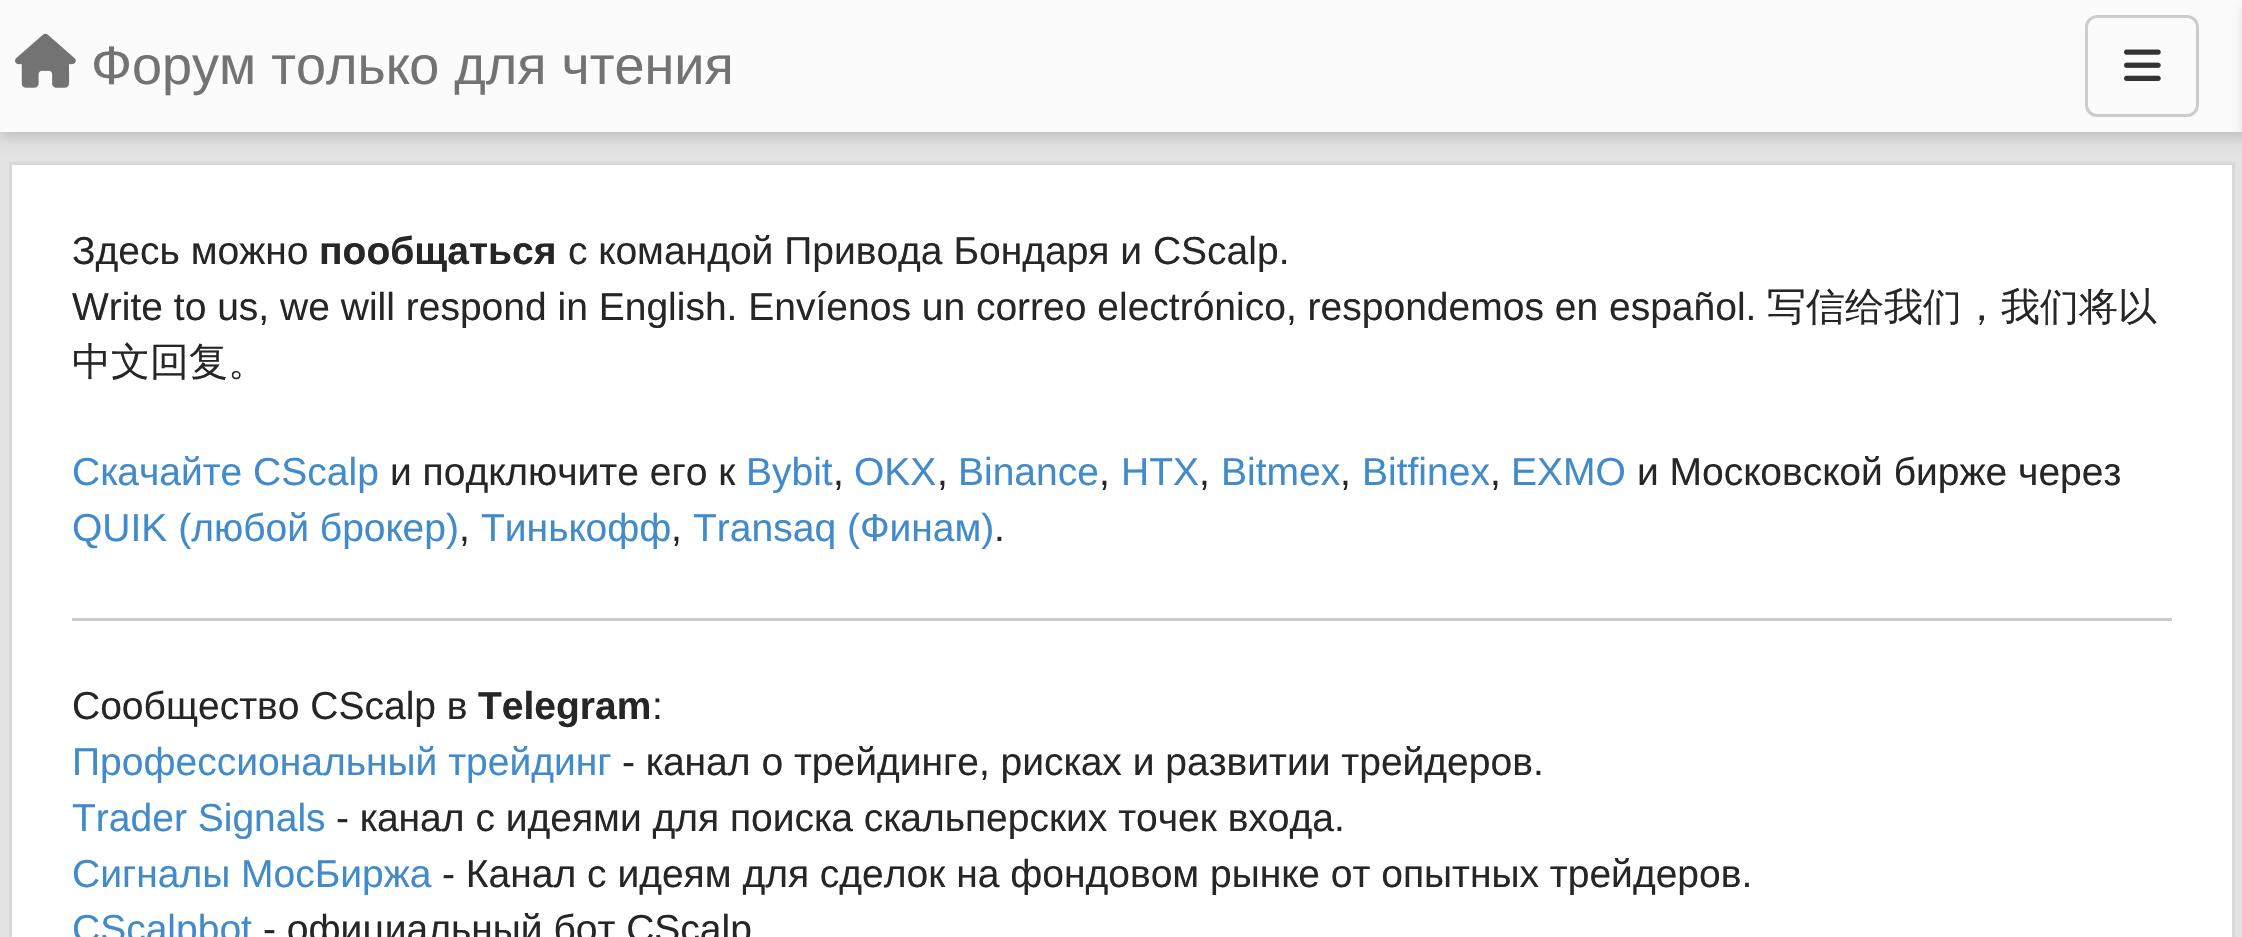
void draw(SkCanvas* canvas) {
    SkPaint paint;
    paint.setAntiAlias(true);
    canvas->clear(0xFFE3E3E3);
    paint.setColor(0x26000000);
    paint.setMaskFilter(SkMaskFilter::MakeBlur(kNormal_SkBlurStyle, 6));
    canvas->drawRect(SkRect::MakeXYWH(0, 6, 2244, 132), paint);
    paint.setMaskFilter(nullptr);
    paint.setColor(0xFFFBFBFB);
    canvas->drawRect(SkRect::MakeXYWH(0, 0, 2242, 132), paint);
    canvas->drawImageRect(SkImages::DeferredFromEncodedData(SkData::MakeFromFileName("img1.png")), SkRect::MakeXYWH(15, 33, 61, 55), SkSamplingOptions());
    SkFont font1(fontMgr->matchFamilyStyle("Liberation Sans", SkFontStyle::Normal()), 54);
    font1.setSubpixel(true);
    paint.setColor(0xFF737373);
    canvas->drawString("Форум только для чтения", 91, 84, font1, paint);
    paint.setStyle(SkPaint::kStroke_Style);
    paint.setStrokeWidth(3);
    paint.setColor(0xFFCCCCCC);
    canvas->drawRoundRect(SkRect::MakeXYWH(2086.5f, 16.5f, 111, 99), 10.5f, 10.5f, paint);
    canvas->drawImageRect(SkImages::DeferredFromEncodedData(SkData::MakeFromFileName("img2.png")), SkRect::MakeXYWH(2124, 49, 37, 32), SkSamplingOptions());
    paint.setStyle(SkPaint::kFill_Style);
    paint.setColor(0x26000000);
    paint.setMaskFilter(SkMaskFilter::MakeBlur(kNormal_SkBlurStyle, 6));
    canvas->drawRect(SkRect::MakeXYWH(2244, 6, 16, 132), paint);
    paint.setMaskFilter(nullptr);
    paint.setColor(0xFFD8D8D8);
    canvas->drawRect(SkRect::MakeXYWH(9, 162, 2226, 3), paint);
    paint.setColor(0xFFFFFFFF);
    canvas->drawPath(SkPathBuilder().moveTo(12, 165).lineTo(2232, 165).lineTo(2232, 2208).cubicTo(2232, 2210, 2229, 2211, 2226, 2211).lineTo(18, 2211).cubicTo(15, 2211, 12, 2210, 12, 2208).close().detach(), paint);
    paint.setColor(0xFFD8D8D8);
    canvas->drawPath(SkPathBuilder(SkPathFillType::kEvenOdd).moveTo(9, 165).lineTo(2235, 165).lineTo(2235, 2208).cubicTo(2235, 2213, 2231, 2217, 2226, 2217).lineTo(18, 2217).cubicTo(13, 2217, 9, 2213, 9, 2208).close().moveTo(12, 165).lineTo(2232, 165).lineTo(2232, 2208).cubicTo(2232, 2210, 2229, 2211, 2226, 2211).lineTo(18, 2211).cubicTo(15, 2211, 12, 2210, 12, 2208).close().detach(), paint);
    SkFont font2(fontMgr->matchFamilyStyle("Liberation Sans", SkFontStyle::Normal()), 39);
    font2.setSubpixel(true);
    paint.setColor(0xFF262626);
    canvas->drawString("Здесь можно", 72, 264, font2, paint);
    SkFont font3(fontMgr->matchFamilyStyle("Liberation Sans", SkFontStyle::Bold()), 39);
    font3.setSubpixel(true);
    canvas->drawString("пообщаться", 319, 264, font3, paint);
    canvas->drawString("с командой Привода Бондаря и CScalp.", 568, 264, font2, paint);
    canvas->drawString("Write to us, we will respond in English. Envíenos un correo electrónico, respondemos en español.", 72, 320, font2, paint);
    SkFont font4(fontMgr->matchFamilyStyle("WenQuanYi Zen Hei", SkFontStyle(500, SkFontStyle::kNormal_Width, SkFontStyle::kUpright_Slant)), 39);
    font4.setSubpixel(true);
    canvas->drawString("写信给我们，我们将以", 1767, 320, font4, paint);
    canvas->drawString("中文回复。", 72, 375, font4, paint);
    paint.setColor(0xFF428BCA);
    canvas->drawString("Скачайте CScalp", 72, 485, font2, paint);
    paint.setColor(0xFF262626);
    canvas->drawString("и подключите его к", 390, 485, font2, paint);
    paint.setColor(0xFF428BCA);
    canvas->drawString("Bybit", 746, 485, font2, paint);
    paint.setColor(0xFF262626);
    canvas->drawString(",", 833, 485, font2, paint);
    paint.setColor(0xFF428BCA);
    canvas->drawString("OKX", 854, 485, font2, paint);
    paint.setColor(0xFF262626);
    canvas->drawString(",", 937, 485, font2, paint);
    paint.setColor(0xFF428BCA);
    canvas->drawString("Binance", 958, 485, font2, paint);
    paint.setColor(0xFF262626);
    canvas->drawString(",", 1099, 485, font2, paint);
    paint.setColor(0xFF428BCA);
    canvas->drawString("HTX", 1121, 485, font2, paint);
    paint.setColor(0xFF262626);
    canvas->drawString(",", 1199, 485, font2, paint);
    paint.setColor(0xFF428BCA);
    canvas->drawString("Bitmex", 1221, 485, font2, paint);
    paint.setColor(0xFF262626);
    canvas->drawString(",", 1340, 485, font2, paint);
    paint.setColor(0xFF428BCA);
    canvas->drawString("Bitfinex", 1362, 485, font2, paint);
    paint.setColor(0xFF262626);
    canvas->drawString(",", 1490, 485, font2, paint);
    paint.setColor(0xFF428BCA);
    canvas->drawString("EXMO", 1511, 485, font2, paint);
    paint.setColor(0xFF262626);
    canvas->drawString("и Московской бирже через", 1637, 485, font2, paint);
    paint.setColor(0xFF428BCA);
    canvas->drawString("QUIK (любой брокер)", 72, 541, font2, paint);
    paint.setColor(0xFF262626);
    canvas->drawString(",", 459, 541, font2, paint);
    paint.setColor(0xFF428BCA);
    canvas->drawString("Тинькофф", 481, 541, font2, paint);
    paint.setColor(0xFF262626);
    canvas->drawString(",", 671, 541, font2, paint);
    paint.setColor(0xFF428BCA);
    canvas->drawString("Transaq (Финам)", 693, 541, font2, paint);
    paint.setColor(0xFF262626);
    canvas->drawString(".", 994, 541, font2, paint);
    paint.setColor(0xFFCCCCCC);
    canvas->drawRect(SkRect::MakeXYWH(72, 618, 2100, 3), paint);
    paint.setColor(0xFF262626);
    canvas->drawString("Сообщество CScalp в", 72, 719, font2, paint);
    canvas->drawString("Telegram", 478, 719, font3, paint);
    canvas->drawString(":", 652, 719, font2, paint);
    paint.setColor(0xFF428BCA);
    canvas->drawString("Профессиональный трейдинг", 72, 775, font2, paint);
    paint.setColor(0xFF262626);
    canvas->drawString("- канал о трейдинге, рисках и развитии трейдеров.", 622, 775, font2, paint);
    paint.setColor(0xFF428BCA);
    canvas->drawString("Trader Signals", 72, 831, font2, paint);
    paint.setColor(0xFF262626);
    canvas->drawString("- канал с идеями для поиска скальперских точек входа.", 336, 831, font2, paint);
    paint.setColor(0xFF428BCA);
    canvas->drawString("Сигналы МосБиржа", 72, 887, font2, paint);
    paint.setColor(0xFF262626);
    canvas->drawString("- Канал с идеям для сделок на фондовом рынке от опытных трейдеров.", 442, 887, font2, paint);
    paint.setColor(0xFF428BCA);
    canvas->drawString("CScalpbot", 72, 942, font2, paint);
    paint.setColor(0xFF262626);
    canvas->drawString("- официальный бот CScalp", 263, 942, font2, paint);
}
